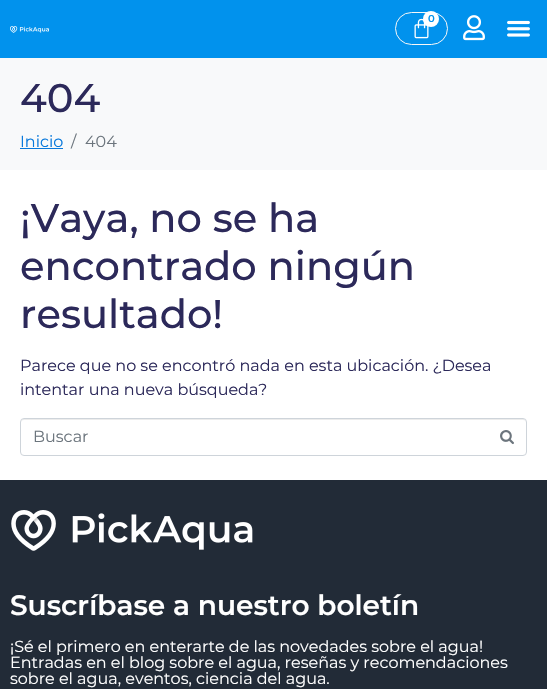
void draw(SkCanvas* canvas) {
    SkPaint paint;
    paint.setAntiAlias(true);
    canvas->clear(0xFFFFFFFF);
    paint.setColor(0xFF0192ED);
    canvas->drawRect(SkRect::MakeXYWH(0, 0, 547, 58), paint);
    paint.setStyle(SkPaint::kStroke_Style);
    paint.setStrokeWidth(1);
    paint.setColor(0xFFF7F7F7);
    canvas->drawRoundRect(SkRect::MakeXYWH(395.5f, 12.5f, 52, 32), 16, 16, paint);
    canvas->drawImageRect(SkImages::DeferredFromEncodedData(SkData::MakeFromFileName("img1.png")), SkRect::MakeXYWH(414, 18, 15, 21), SkSamplingOptions());
    paint.setStyle(SkPaint::kFill_Style);
    paint.setColor(0xFFFFFFFF);
    canvas->drawCircle(431, 19, 8, paint);
    SkFont font1(fontMgr->matchFamilyStyle("Montserrat", SkFontStyle(600, SkFontStyle::kNormal_Width, SkFontStyle::kUpright_Slant)), 10);
    font1.setSubpixel(true);
    paint.setColor(0xFF0192ED);
    canvas->drawString("0", 428, 22, font1, paint);
    canvas->drawImageRect(SkImages::DeferredFromEncodedData(SkData::MakeFromFileName("img2.png")), SkRect::MakeXYWH(463, 15, 22, 26), SkSamplingOptions());
    canvas->drawImageRect(SkImages::DeferredFromEncodedData(SkData::MakeFromFileName("img3.png")), SkRect::MakeXYWH(507, 20, 23, 17), SkSamplingOptions());
    canvas->drawImageRect(SkImages::DeferredFromEncodedData(SkData::MakeFromFileName("img4.png")), SkRect::MakeXYWH(10, 26, 39, 7), SkSamplingOptions());
    paint.setColor(0xFFF8F9FA);
    canvas->drawRect(SkRect::MakeXYWH(0, 58, 547, 112), paint);
    SkFont font2(fontMgr->matchFamilyStyle("Montserrat", SkFontStyle(500, SkFontStyle::kNormal_Width, SkFontStyle::kUpright_Slant)), 40);
    font2.setSubpixel(true);
    paint.setColor(0xFF2C295A);
    canvas->drawString("404", 20, 112, font2, paint);
    SkFont font3(fontMgr->matchFamilyStyle("Montserrat", SkFontStyle::Normal()), 16);
    font3.setSubpixel(true);
    paint.setColor(0xFF0979DC);
    canvas->drawString("Inicio", 20, 147, font3, paint);
    canvas->drawRect(SkRect::MakeXYWH(20, 148, 43, 1), paint);
    paint.setColor(0xFF6C757D);
    canvas->drawString("/", 71, 147, font3, paint);
    canvas->drawString("404", 85, 147, font3, paint);
    paint.setColor(0xFF2C295A);
    canvas->drawString("¡Vaya, no se ha", 20, 232, font2, paint);
    canvas->drawString("encontrado ningún", 20, 280, font2, paint);
    canvas->drawString("resultado!", 20, 328, font2, paint);
    canvas->drawString("Parece que no se encontró nada en esta ubicación. ¿Desea", 20, 371, font3, paint);
    canvas->drawString("intentar una nueva búsqueda?", 20, 395, font3, paint);
    paint.setColor(0xFFECECEC);
    canvas->drawPath(SkPathBuilder().moveTo(24, 420).lineTo(523, 420).cubicTo(525, 420, 526, 421, 526, 423).cubicTo(526, 421, 525, 419, 523, 419).lineTo(24, 419).cubicTo(22, 419, 21, 421, 21, 423).cubicTo(21, 421, 22, 420, 24, 420).close().detach(), paint);
    paint.setStyle(SkPaint::kStroke_Style);
    paint.setColor(0xFFCED4DA);
    canvas->drawRoundRect(SkRect::MakeXYWH(20.5f, 418.5f, 506, 37), 3.5f, 3.5f, paint);
    paint.setStyle(SkPaint::kFill_Style);
    paint.setColor(0xFF6C757D);
    canvas->drawString("Buscar", 33, 442, font3, paint);
    canvas->drawImageRect(SkImages::DeferredFromEncodedData(SkData::MakeFromFileName("img5.png")), SkRect::MakeXYWH(500, 430, 14, 15), SkSamplingOptions());
    paint.setColor(0xFF222B37);
    canvas->drawRect(SkRect::MakeXYWH(0, 480, 547, 209), paint);
    canvas->drawImageRect(SkImages::DeferredFromEncodedData(SkData::MakeFromFileName("img6.png")), SkRect::MakeXYWH(11, 510, 242, 41), SkSamplingOptions());
    SkFont font4(fontMgr->matchFamilyStyle("Montserrat", SkFontStyle(600, SkFontStyle::kNormal_Width, SkFontStyle::kUpright_Slant)), 28);
    font4.setSubpixel(true);
    paint.setColor(0xFFFFFFFF);
    canvas->drawString("Suscríbase a nuestro boletín", 10, 615, font4, paint);
    canvas->drawString("¡Sé el primero en enterarte de las novedades sobre el agua!", 10, 652, font3, paint);
    canvas->drawString("Entradas en el blog sobre el agua, reseñas y recomendaciones", 10, 668, font3, paint);
    canvas->drawString("sobre el agua, eventos, ciencia del agua.", 10, 684, font3, paint);
}
